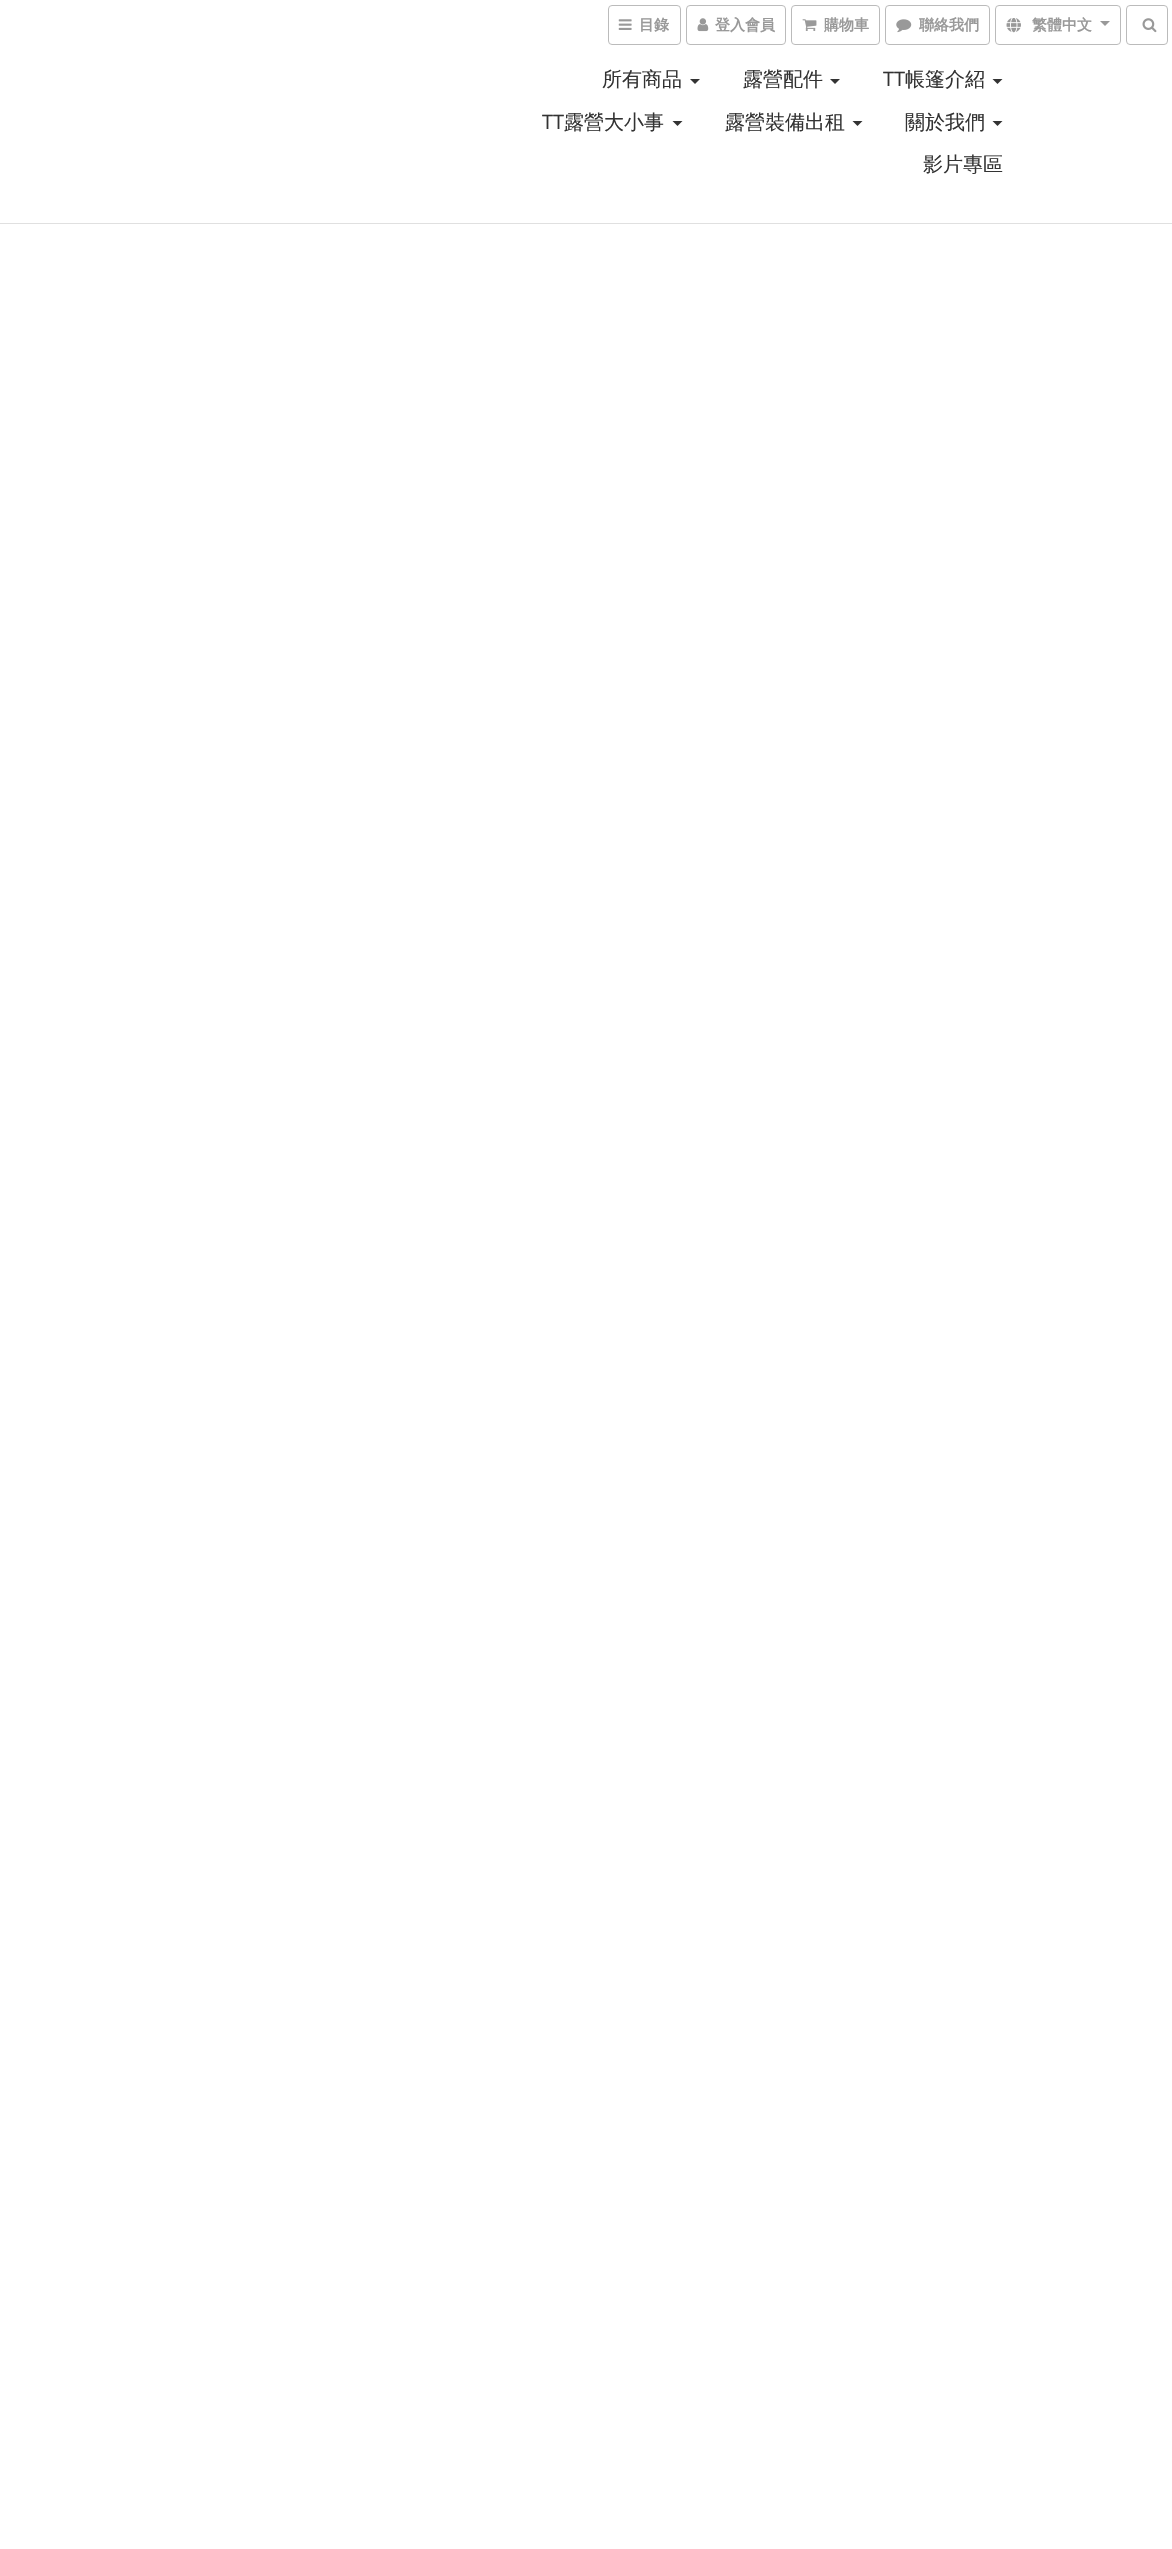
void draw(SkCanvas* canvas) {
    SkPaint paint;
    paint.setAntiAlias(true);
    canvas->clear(0xFFFFFFFF);
    paint.setStyle(SkPaint::kStroke_Style);
    paint.setStrokeWidth(1);
    paint.setColor(0xFFBBBBBB);
    canvas->drawRoundRect(SkRect::MakeXYWH(608.5f, 5.5f, 72, 39), 3.5f, 3.5f, paint);
    canvas->drawImageRect(SkImages::DeferredFromEncodedData(SkData::MakeFromFileName("img1.png")), SkRect::MakeXYWH(618, 19, 14, 11), SkSamplingOptions());
    SkFont font1(fontMgr->matchFamilyStyle("WenQuanYi Zen Hei", SkFontStyle::Bold()), 15);
    font1.setSubpixel(true);
    paint.setStyle(SkPaint::kFill_Style);
    paint.setColor(0xFF999999);
    canvas->drawString("目錄", 639, 30, font1, paint);
    paint.setStyle(SkPaint::kStroke_Style);
    paint.setColor(0xFFBBBBBB);
    canvas->drawRoundRect(SkRect::MakeXYWH(686.5f, 5.5f, 99, 39), 3.5f, 3.5f, paint);
    canvas->drawImageRect(SkImages::DeferredFromEncodedData(SkData::MakeFromFileName("img2.png")), SkRect::MakeXYWH(697, 18, 12, 14), SkSamplingOptions());
    paint.setStyle(SkPaint::kFill_Style);
    paint.setColor(0xFF999999);
    canvas->drawString("登入會員", 715, 30, font1, paint);
    paint.setStyle(SkPaint::kStroke_Style);
    paint.setColor(0xFFBBBBBB);
    canvas->drawRoundRect(SkRect::MakeXYWH(791.5f, 5.5f, 88, 39), 3.5f, 3.5f, paint);
    canvas->drawImageRect(SkImages::DeferredFromEncodedData(SkData::MakeFromFileName("img3.png")), SkRect::MakeXYWH(802, 19, 15, 12), SkSamplingOptions());
    paint.setStyle(SkPaint::kFill_Style);
    paint.setColor(0xFF999999);
    canvas->drawString("購物車", 824, 30, font1, paint);
    paint.setStyle(SkPaint::kStroke_Style);
    paint.setColor(0xFFBBBBBB);
    canvas->drawRoundRect(SkRect::MakeXYWH(885.5f, 5.5f, 104, 39), 3.5f, 3.5f, paint);
    canvas->drawImageRect(SkImages::DeferredFromEncodedData(SkData::MakeFromFileName("img4.png")), SkRect::MakeXYWH(896, 19, 16, 14), SkSamplingOptions());
    paint.setStyle(SkPaint::kFill_Style);
    paint.setColor(0xFF999999);
    canvas->drawString("聯絡我們", 919, 30, font1, paint);
    paint.setStyle(SkPaint::kStroke_Style);
    paint.setColor(0xFFBBBBBB);
    canvas->drawRoundRect(SkRect::MakeXYWH(995.5f, 5.5f, 125, 39), 3.5f, 3.5f, paint);
    canvas->drawImageRect(SkImages::DeferredFromEncodedData(SkData::MakeFromFileName("img5.png")), SkRect::MakeXYWH(1006, 18, 15, 15), SkSamplingOptions());
    paint.setStyle(SkPaint::kFill_Style);
    paint.setColor(0xFF999999);
    canvas->drawString("繁體中文", 1032, 30, font1, paint);
    canvas->drawPath(SkPathBuilder().moveTo(1100, 21).lineTo(1110, 21).lineTo(1105, 26).close().detach(), paint);
    paint.setStyle(SkPaint::kStroke_Style);
    paint.setColor(0xFFBBBBBB);
    canvas->drawRoundRect(SkRect::MakeXYWH(1126.5f, 5.5f, 41, 39), 3.5f, 3.5f, paint);
    canvas->drawImageRect(SkImages::DeferredFromEncodedData(SkData::MakeFromFileName("img6.png")), SkRect::MakeXYWH(1142, 18, 15, 15), SkSamplingOptions());
    paint.setStyle(SkPaint::kFill_Style);
    paint.setColor(0xFFE0E0E0);
    canvas->drawRect(SkRect::MakeXYWH(0, 223, 1172, 1), paint);
    SkFont font2(fontMgr->matchFamilyStyle("WenQuanYi Zen Hei", SkFontStyle(500, SkFontStyle::kNormal_Width, SkFontStyle::kUpright_Slant)), 20);
    font2.setSubpixel(true);
    paint.setColor(0xFF333333);
    canvas->drawString("所有商品", 602, 86, font2, paint);
    canvas->drawPath(SkPathBuilder().moveTo(690, 79).lineTo(700, 79).lineTo(695, 84).close().detach(), paint);
    canvas->drawString("露營配件", 743, 86, font2, paint);
    canvas->drawPath(SkPathBuilder().moveTo(830, 79).lineTo(840, 79).lineTo(835, 84).close().detach(), paint);
    SkFont font3(fontMgr->matchFamilyStyle("Open Sans", SkFontStyle::Normal()), 20);
    font3.setSubpixel(true);
    canvas->drawString("TT", 883, 86, font3, paint);
    canvas->drawString("帳篷介紹", 905, 86, font2, paint);
    canvas->drawPath(SkPathBuilder().moveTo(992.5f, 79).lineTo(1002.5f, 79).lineTo(997.5f, 84).close().detach(), paint);
    canvas->drawString("TT", 542, 129, font3, paint);
    canvas->drawString("露營大小事", 564, 129, font2, paint);
    canvas->drawPath(SkPathBuilder().moveTo(672.5f, 121).lineTo(682.5f, 121).lineTo(677.5f, 126).close().detach(), paint);
    canvas->drawString("露營裝備出租", 725, 129, font2, paint);
    canvas->drawPath(SkPathBuilder().moveTo(852.5f, 121).lineTo(862.5f, 121).lineTo(857.5f, 126).close().detach(), paint);
    canvas->drawString("關於我們", 905, 129, font2, paint);
    canvas->drawPath(SkPathBuilder().moveTo(992.5f, 121).lineTo(1002.5f, 121).lineTo(997.5f, 126).close().detach(), paint);
    canvas->drawString("影片專區", 923, 171, font2, paint);
}
